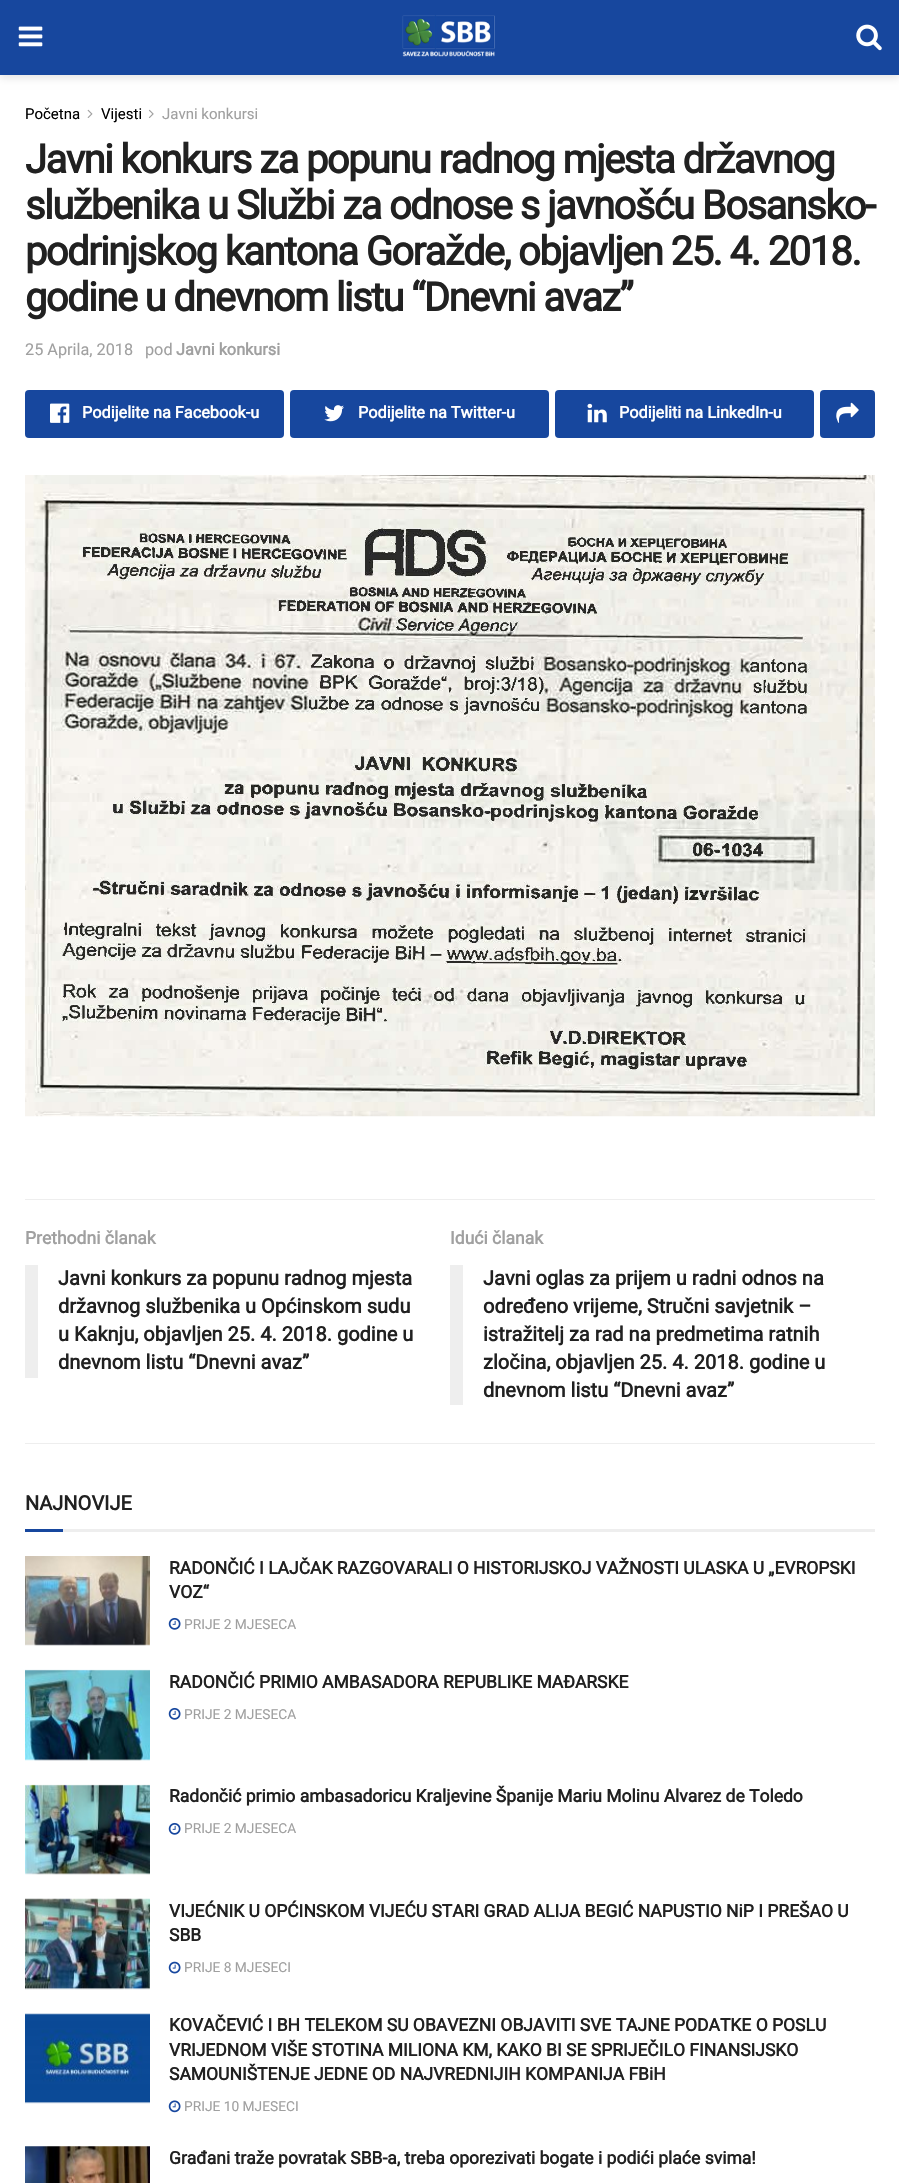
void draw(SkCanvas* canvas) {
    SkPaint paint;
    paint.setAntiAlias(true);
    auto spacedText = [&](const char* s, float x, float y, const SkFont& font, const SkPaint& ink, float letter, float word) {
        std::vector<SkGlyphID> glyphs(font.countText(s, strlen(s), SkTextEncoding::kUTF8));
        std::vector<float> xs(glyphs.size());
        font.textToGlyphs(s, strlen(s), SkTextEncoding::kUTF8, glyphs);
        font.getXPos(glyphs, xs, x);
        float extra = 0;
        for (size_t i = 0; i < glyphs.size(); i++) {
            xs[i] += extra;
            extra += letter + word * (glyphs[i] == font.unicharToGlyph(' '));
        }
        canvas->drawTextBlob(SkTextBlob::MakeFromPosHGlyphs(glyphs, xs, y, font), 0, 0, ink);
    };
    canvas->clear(0xFFFFFFFF);
    paint.setColor(0x1A000000);
    paint.setMaskFilter(SkMaskFilter::MakeBlur(kNormal_SkBlurStyle, 4));
    canvas->drawRect(SkRect::MakeXYWH(0, 3, 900, 75), paint);
    paint.setMaskFilter(nullptr);
    paint.setColor(0xFF17479E);
    canvas->drawRect(SkRect::MakeXYWH(0, 0, 899, 75), paint);
    canvas->drawImageRect(SkImages::DeferredFromEncodedData(SkData::MakeFromFileName("img1.png")), SkRect::MakeXYWH(18, 26, 25, 21), SkSamplingOptions());
    canvas->drawImageRect(SkImages::DeferredFromEncodedData(SkData::MakeFromFileName("img2.png")), SkRect::MakeXYWH(402, 15, 93, 42), SkSamplingOptions());
    canvas->drawImageRect(SkImages::DeferredFromEncodedData(SkData::MakeFromFileName("img3.png")), SkRect::MakeXYWH(856, 24, 26, 27), SkSamplingOptions());
    SkFont font1(fontMgr->matchFamilyStyle("Roboto", SkFontStyle::Normal()), 15);
    font1.setSubpixel(true);
    paint.setColor(0xFF000000);
    canvas->drawString("Početna", 25, 119, font1, paint);
    canvas->drawImageRect(SkImages::DeferredFromEncodedData(SkData::MakeFromFileName("img4.png")), SkRect::MakeXYWH(87, 109, 6, 9), SkSamplingOptions());
    canvas->drawString("Vijesti", 101, 119, font1, paint);
    canvas->drawImageRect(SkImages::DeferredFromEncodedData(SkData::MakeFromFileName("img5.png")), SkRect::MakeXYWH(148, 109, 6, 9), SkSamplingOptions());
    paint.setColor(0xFFA0A0A0);
    canvas->drawString("Javni konkursi", 162, 119, font1, paint);
    SkFont font2(fontMgr->matchFamilyStyle("Roboto", SkFontStyle::Bold()), 40);
    font2.setSubpixel(true);
    paint.setColor(0xFF212121);
    spacedText("Javni konkurs za popunu radnog mjesta državnog", 25, 173, font2, paint, -1.6f, 0);
    spacedText("službenika u Službi za odnose s javnošću Bosansko-", 25, 219, font2, paint, -1.6f, 0);
    spacedText("podrinjskog kantona Goražde, objavljen 25. 4. 2018.", 25, 265, font2, paint, -1.6f, 0);
    spacedText("godine u dnevnom listu “Dnevni avaz”", 25, 311, font2, paint, -1.6f, 0);
    SkFont font3(fontMgr->matchFamilyStyle("Roboto", SkFontStyle::Normal()), 16.25f);
    font3.setSubpixel(true);
    paint.setColor(0xFFA0A0A0);
    canvas->drawString("25 Aprila, 2018", 25, 355, font3, paint);
    canvas->drawString("pod", 145, 355, font3, paint);
    SkFont font4(fontMgr->matchFamilyStyle("Roboto", SkFontStyle::Bold()), 16.25f);
    font4.setSubpixel(true);
    canvas->drawString("Javni konkursi", 176, 355, font4, paint);
    paint.setColor(0xFF17479E);
    canvas->drawRoundRect(SkRect::MakeXYWH(25, 390, 259, 48), 4, 4, paint);
    canvas->drawImageRect(SkImages::DeferredFromEncodedData(SkData::MakeFromFileName("img6.png")), SkRect::MakeXYWH(50, 403, 20, 20), SkSamplingOptions());
    paint.setColor(0xFFFFFFFF);
    canvas->drawString("Podijelite na Facebook-u", 82, 418, font4, paint);
    paint.setColor(0xFF17479E);
    canvas->drawRoundRect(SkRect::MakeXYWH(290, 390, 259, 48), 4, 4, paint);
    canvas->drawImageRect(SkImages::DeferredFromEncodedData(SkData::MakeFromFileName("img7.png")), SkRect::MakeXYWH(324, 405, 20, 17), SkSamplingOptions());
    paint.setColor(0xFFFFFFFF);
    canvas->drawString("Podijelite na Twitter-u", 358, 418, font4, paint);
    paint.setColor(0xFF17479E);
    canvas->drawRoundRect(SkRect::MakeXYWH(555, 390, 259, 48), 4, 4, paint);
    canvas->drawImageRect(SkImages::DeferredFromEncodedData(SkData::MakeFromFileName("img8.png")), SkRect::MakeXYWH(587, 403, 20, 20), SkSamplingOptions());
    paint.setColor(0xFFFFFFFF);
    canvas->drawString("Podijeliti na LinkedIn-u", 619, 418, font4, paint);
    paint.setColor(0xFF17479E);
    canvas->drawRoundRect(SkRect::MakeXYWH(820, 390, 55, 48), 4, 4, paint);
    canvas->drawImageRect(SkImages::DeferredFromEncodedData(SkData::MakeFromFileName("img9.png")), SkRect::MakeXYWH(836, 402, 23, 21), SkSamplingOptions());
    canvas->drawImageRect(SkImages::DeferredFromEncodedData(SkData::MakeFromFileName("img10.png")), SkRect::MakeXYWH(25, 475, 850, 642), SkSamplingOptions());
    paint.setColor(0xFFEEEEEE);
    canvas->drawRect(SkRect::MakeXYWH(25, 1199, 850, 1), paint);
    canvas->drawRect(SkRect::MakeXYWH(25, 1443, 850, 1), paint);
    SkFont font5(fontMgr->matchFamilyStyle("Roboto", SkFontStyle::Bold()), 17.5f);
    font5.setSubpixel(true);
    paint.setColor(0xFFA0A0A0);
    canvas->drawString("Prethodni članak", 25, 1244, font5, paint);
    paint.setColor(0xFFEEEEEE);
    canvas->drawRect(SkRect::MakeXYWH(25, 1265, 13, 113), paint);
    SkFont font6(fontMgr->matchFamilyStyle("Roboto", SkFontStyle::Bold()), 20);
    font6.setSubpixel(true);
    paint.setColor(0xFF212121);
    canvas->drawString("Javni konkurs za popunu radnog mjesta", 58, 1285, font6, paint);
    canvas->drawString("državnog službenika u Općinskom sudu", 58, 1313, font6, paint);
    canvas->drawString("u Kaknju, objavljen 25. 4. 2018. godine u", 58, 1341, font6, paint);
    canvas->drawString("dnevnom listu “Dnevni avaz”", 58, 1369, font6, paint);
    paint.setColor(0xFFA0A0A0);
    canvas->drawString("Idući članak", 450, 1244, font5, paint);
    paint.setColor(0xFFEEEEEE);
    canvas->drawRect(SkRect::MakeXYWH(450, 1265, 13, 140), paint);
    paint.setColor(0xFF212121);
    canvas->drawString("Javni oglas za prijem u radni odnos na", 483, 1285, font6, paint);
    canvas->drawString("određeno vrijeme, Stručni savjetnik –", 483, 1313, font6, paint);
    canvas->drawString("istražitelj za rad na predmetima ratnih", 483, 1341, font6, paint);
    canvas->drawString("zločina, objavljen 25. 4. 2018. godine u", 483, 1369, font6, paint);
    canvas->drawString("dnevnom listu “Dnevni avaz”", 483, 1397, font6, paint);
    paint.setColor(0xFFEEEEEE);
    canvas->drawRect(SkRect::MakeXYWH(63, 1529, 812, 3), paint);
    paint.setColor(0xFF212121);
    canvas->drawString("NAJNOVIJE", 25, 1510, font6, paint);
    paint.setColor(0xFF17479E);
    canvas->drawRect(SkRect::MakeXYWH(25, 1529, 38, 3), paint);
    canvas->drawImageRect(SkImages::DeferredFromEncodedData(SkData::MakeFromFileName("img11.png")), SkRect::MakeXYWH(25, 1556, 125, 90), SkSamplingOptions());
    paint.setColor(0xFF212121);
    canvas->drawString("RADONČIĆ I LAJČAK RAZGOVARALI O HISTORIJSKOJ VAŽNOSTI ULASKA U „EVROPSKI", 169, 1574, font5, paint);
    canvas->drawString("VOZ“", 169, 1598, font5, paint);
    canvas->drawImageRect(SkImages::DeferredFromEncodedData(SkData::MakeFromFileName("img12.png")), SkRect::MakeXYWH(168, 1617, 13, 13), SkSamplingOptions());
    SkFont font7(fontMgr->matchFamilyStyle("Roboto", SkFontStyle::Normal()), 13.75f);
    font7.setSubpixel(true);
    paint.setColor(0xFFA0A0A0);
    canvas->drawString("PRIJE 2 MJESECA", 184, 1629, font7, paint);
    paint.setColor(0xFFF7F7F7);
    canvas->drawRect(SkRect::MakeXYWH(25, 1670, 125, 90), paint);
    canvas->drawImageRect(SkImages::DeferredFromEncodedData(SkData::MakeFromFileName("img13.png")), SkRect::MakeXYWH(25, 1669, 125, 92), SkSamplingOptions());
    paint.setColor(0xFF212121);
    canvas->drawString("RADONČIĆ PRIMIO AMBASADORA REPUBLIKE MAĐARSKE", 169, 1688, font5, paint);
    canvas->drawImageRect(SkImages::DeferredFromEncodedData(SkData::MakeFromFileName("img12.png")), SkRect::MakeXYWH(168, 1707, 13, 13), SkSamplingOptions());
    paint.setColor(0xFFA0A0A0);
    canvas->drawString("PRIJE 2 MJESECA", 184, 1719, font7, paint);
    paint.setColor(0xFFF7F7F7);
    canvas->drawRect(SkRect::MakeXYWH(25, 1785, 125, 89), paint);
    canvas->drawImageRect(SkImages::DeferredFromEncodedData(SkData::MakeFromFileName("img14.png")), SkRect::MakeXYWH(25, 1784, 125, 91), SkSamplingOptions());
    paint.setColor(0xFF212121);
    canvas->drawString("Radončić primio ambasadoricu Kraljevine Španije Mariu Molinu Alvarez de Toledo", 169, 1802, font5, paint);
    canvas->drawImageRect(SkImages::DeferredFromEncodedData(SkData::MakeFromFileName("img12.png")), SkRect::MakeXYWH(168, 1822, 13, 13), SkSamplingOptions());
    paint.setColor(0xFFA0A0A0);
    canvas->drawString("PRIJE 2 MJESECA", 184, 1833, font7, paint);
    paint.setColor(0xFFF7F7F7);
    canvas->drawRect(SkRect::MakeXYWH(25, 1899, 125, 90), paint);
    canvas->drawImageRect(SkImages::DeferredFromEncodedData(SkData::MakeFromFileName("img16.png")), SkRect::MakeXYWH(25, 1899, 2, 1), SkSamplingOptions());
    canvas->drawImageRect(SkImages::DeferredFromEncodedData(SkData::MakeFromFileName("img15.png")), SkRect::MakeXYWH(25, 1898, 125, 92), SkSamplingOptions());
    paint.setColor(0xFF212121);
    canvas->drawString("VIJEĆNIK U OPĆINSKOM VIJEĆU STARI GRAD ALIJA BEGIĆ NAPUSTIO NiP I PREŠAO U", 169, 1917, font5, paint);
    canvas->drawString("SBB", 169, 1941, font5, paint);
    canvas->drawImageRect(SkImages::DeferredFromEncodedData(SkData::MakeFromFileName("img17.png")), SkRect::MakeXYWH(168, 1961, 13, 13), SkSamplingOptions());
    paint.setColor(0xFFA0A0A0);
    canvas->drawString("PRIJE 8 MJESECI", 184, 1972, font7, paint);
    paint.setColor(0xFFF7F7F7);
    canvas->drawRect(SkRect::MakeXYWH(25, 2014, 125, 89), paint);
    canvas->drawImageRect(SkImages::DeferredFromEncodedData(SkData::MakeFromFileName("img16.png")), SkRect::MakeXYWH(25, 2014, 2, 1), SkSamplingOptions());
    canvas->drawImageRect(SkImages::DeferredFromEncodedData(SkData::MakeFromFileName("img18.png")), SkRect::MakeXYWH(25, 2013, 125, 91), SkSamplingOptions());
    paint.setColor(0xFF212121);
    canvas->drawString("KOVAČEVIĆ I BH TELEKOM SU OBAVEZNI OBJAVITI SVE TAJNE PODATKE O POSLU", 169, 2031, font5, paint);
    canvas->drawString("VRIJEDNOM VIŠE STOTINA MILIONA KM, KAKO BI SE SPRIJEČILO FINANSIJSKO", 169, 2056, font5, paint);
    canvas->drawString("SAMOUNIŠTENJE JEDNE OD NAJVREDNIJIH KOMPANIJA FBiH", 169, 2080, font5, paint);
    canvas->drawImageRect(SkImages::DeferredFromEncodedData(SkData::MakeFromFileName("img19.png")), SkRect::MakeXYWH(168, 2100, 13, 13), SkSamplingOptions());
    paint.setColor(0xFFA0A0A0);
    canvas->drawString("PRIJE 10 MJESECI", 184, 2111, font7, paint);
    canvas->drawImageRect(SkImages::DeferredFromEncodedData(SkData::MakeFromFileName("img20.png")), SkRect::MakeXYWH(25, 2146, 125, 37), SkSamplingOptions());
    paint.setColor(0xFF212121);
    canvas->drawString("Građani traže povratak SBB-a, treba oporezivati bogate i podići plaće svima!", 169, 2164, font5, paint);
}
